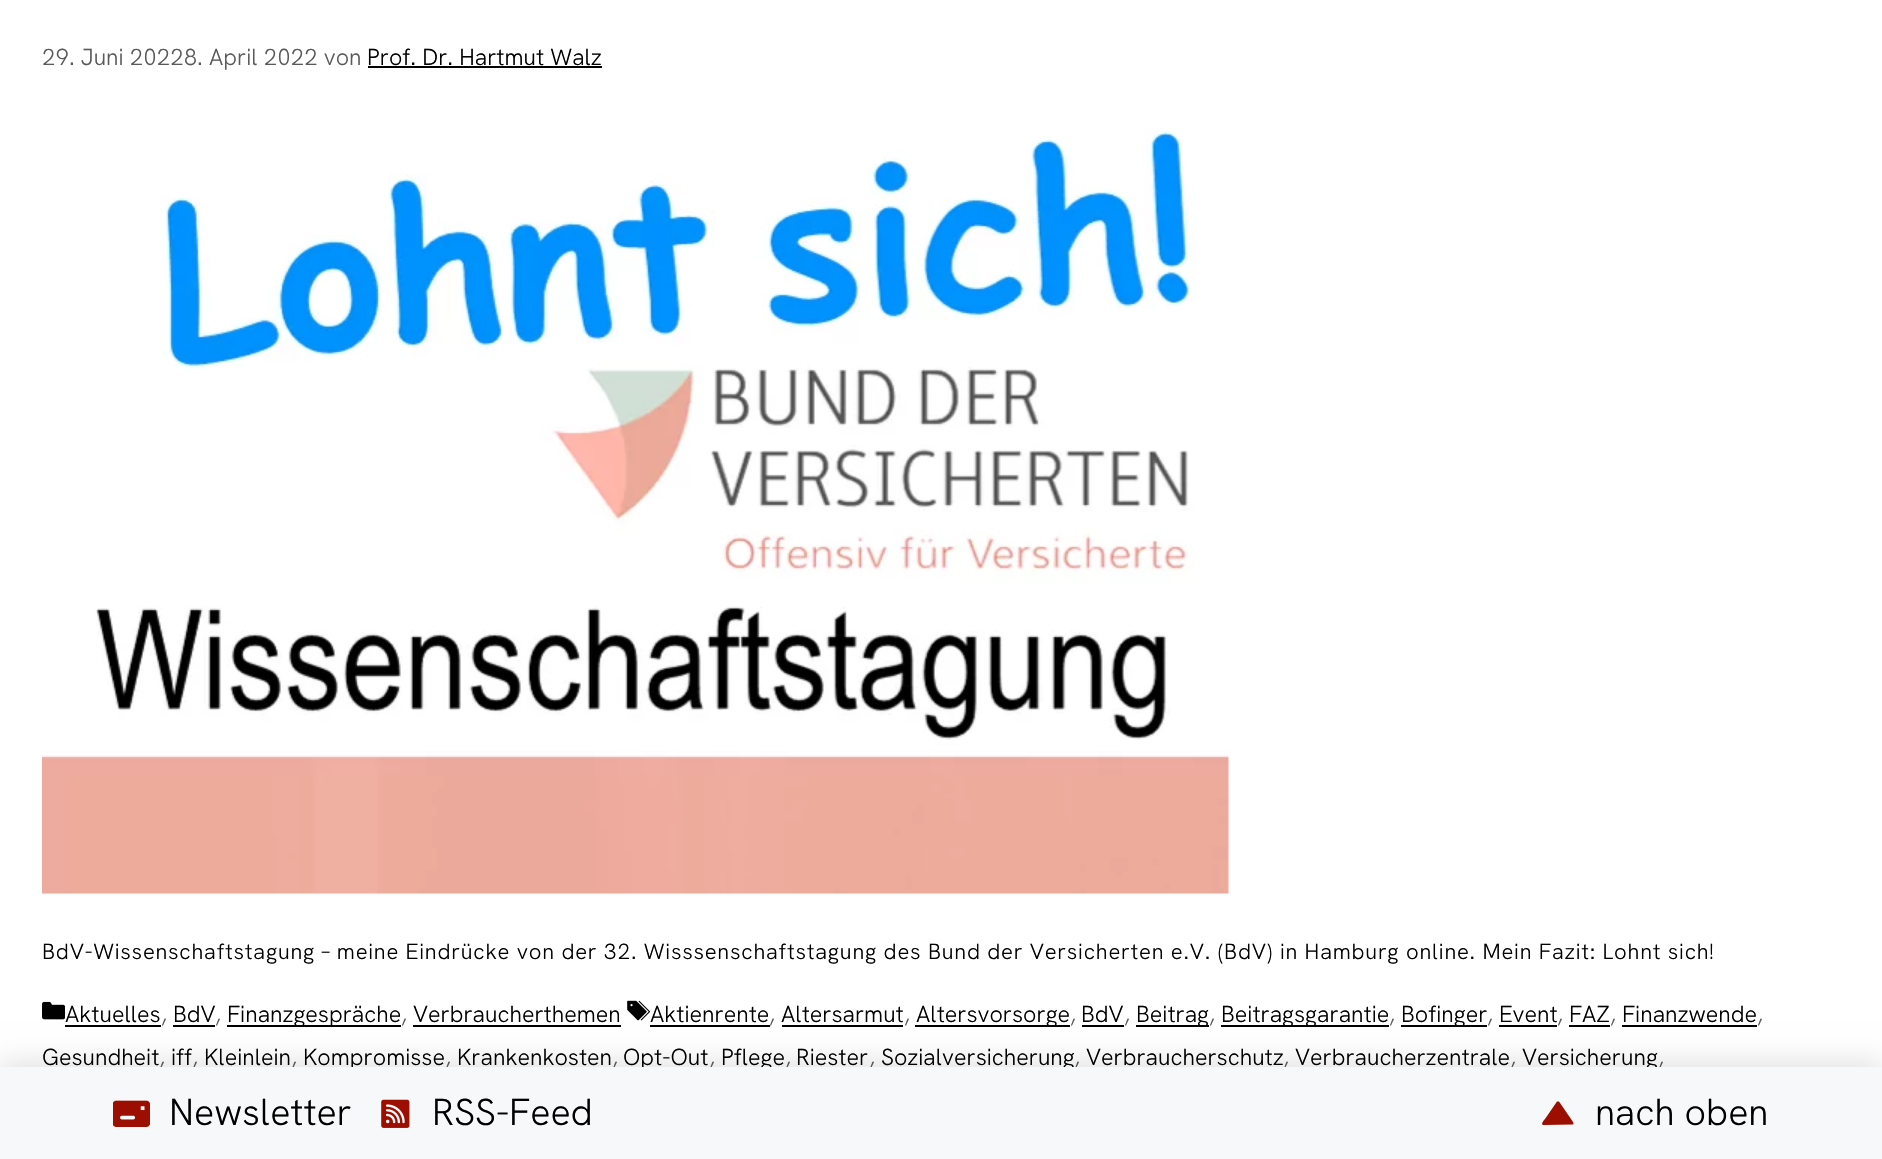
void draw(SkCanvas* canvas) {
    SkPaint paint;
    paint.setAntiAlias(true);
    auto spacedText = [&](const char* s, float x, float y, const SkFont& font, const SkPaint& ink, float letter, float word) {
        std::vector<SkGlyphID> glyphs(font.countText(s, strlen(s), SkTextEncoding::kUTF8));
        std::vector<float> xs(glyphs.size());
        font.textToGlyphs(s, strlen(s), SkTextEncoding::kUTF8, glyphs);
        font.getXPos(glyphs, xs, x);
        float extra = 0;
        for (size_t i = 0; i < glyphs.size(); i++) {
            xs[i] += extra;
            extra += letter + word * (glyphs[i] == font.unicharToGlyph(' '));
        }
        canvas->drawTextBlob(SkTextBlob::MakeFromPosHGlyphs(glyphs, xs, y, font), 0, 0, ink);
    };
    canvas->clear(0xFFFFFFFF);
    SkFont font1(fontMgr->matchFamilyStyle("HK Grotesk", SkFontStyle::Normal()), 23.25f);
    font1.setSubpixel(true);
    paint.setColor(0xFF595959);
    canvas->drawString("29. Juni 20228. April 2022 von", 42, 65, font1, paint);
    paint.setColor(0xFF000000);
    canvas->drawString("Prof. Dr. Hartmut Walz", 367, 65, font1, paint);
    canvas->drawRect(SkRect::MakeXYWH(368, 66, 234, 2), paint);
    canvas->drawImageRect(SkImages::DeferredFromEncodedData(SkData::MakeFromFileName("img1.png")), SkRect::MakeXYWH(42, 127, 1187, 767), SkSamplingOptions());
    SkFont font2(fontMgr->matchFamilyStyle("HK Grotesk", SkFontStyle::Normal()), 22.05f);
    font2.setSubpixel(true);
    spacedText("BdV-Wissenschaftstagung – meine Eindrücke von der 32. Wisssenschaftstagung des Bund der Versicherten e.V. (BdV) in Hamburg online. Mein Fazit: Lohnt sich!", 42, 959, font2, paint, 0.77f, 0);
    canvas->drawImageRect(SkImages::DeferredFromEncodedData(SkData::MakeFromFileName("img2.png")), SkRect::MakeXYWH(42, 1001, 23, 19), SkSamplingOptions());
    canvas->drawString("Aktuelles", 65, 1022, font1, paint);
    paint.setColor(0xFF595959);
    canvas->drawString(",", 161, 1022, font1, paint);
    paint.setColor(0xFF000000);
    canvas->drawRect(SkRect::MakeXYWH(65, 1025, 96, 2), paint);
    canvas->drawString("BdV", 173, 1022, font1, paint);
    paint.setColor(0xFF595959);
    canvas->drawString(",", 215, 1022, font1, paint);
    paint.setColor(0xFF000000);
    canvas->drawRect(SkRect::MakeXYWH(173, 1025, 42, 2), paint);
    canvas->drawRect(SkRect::MakeXYWH(227, 1025, 174, 2), paint);
    canvas->drawString("Finanzgespräche", 227, 1022, font1, paint);
    paint.setColor(0xFF595959);
    canvas->drawString(",", 401, 1022, font1, paint);
    paint.setColor(0xFF000000);
    canvas->drawRect(SkRect::MakeXYWH(413, 1025, 208, 2), paint);
    canvas->drawString("Verbraucherthemen", 413, 1022, font1, paint);
    canvas->drawImageRect(SkImages::DeferredFromEncodedData(SkData::MakeFromFileName("img3.png")), SkRect::MakeXYWH(627, 1000, 23, 21), SkSamplingOptions());
    canvas->drawString("Aktienrente", 650, 1022, font1, paint);
    paint.setColor(0xFF595959);
    canvas->drawString(",", 769, 1022, font1, paint);
    paint.setColor(0xFF000000);
    canvas->drawRect(SkRect::MakeXYWH(650, 1025, 120, 2), paint);
    canvas->drawString("Altersarmut", 781, 1022, font1, paint);
    paint.setColor(0xFF595959);
    canvas->drawString(",", 904, 1022, font1, paint);
    paint.setColor(0xFF000000);
    canvas->drawRect(SkRect::MakeXYWH(782, 1025, 121, 2), paint);
    canvas->drawRect(SkRect::MakeXYWH(915, 1025, 155, 2), paint);
    canvas->drawString("Altersvorsorge", 916, 1022, font1, paint);
    paint.setColor(0xFF595959);
    canvas->drawString(",", 1070, 1022, font1, paint);
    paint.setColor(0xFF000000);
    canvas->drawString("BdV", 1081, 1022, font1, paint);
    paint.setColor(0xFF595959);
    canvas->drawString(",", 1124, 1022, font1, paint);
    paint.setColor(0xFF000000);
    canvas->drawRect(SkRect::MakeXYWH(1082, 1025, 42, 2), paint);
    canvas->drawRect(SkRect::MakeXYWH(1136, 1025, 73, 2), paint);
    canvas->drawString("Beitrag", 1136, 1022, font1, paint);
    paint.setColor(0xFF595959);
    canvas->drawString(",", 1209, 1022, font1, paint);
    paint.setColor(0xFF000000);
    canvas->drawRect(SkRect::MakeXYWH(1221, 1025, 168, 2), paint);
    canvas->drawString("Beitragsgarantie", 1221, 1022, font1, paint);
    paint.setColor(0xFF595959);
    canvas->drawString(",", 1389, 1022, font1, paint);
    paint.setColor(0xFF000000);
    canvas->drawRect(SkRect::MakeXYWH(1401, 1025, 86, 2), paint);
    canvas->drawString("Bofinger", 1401, 1022, font1, paint);
    paint.setColor(0xFF595959);
    canvas->drawString(",", 1487, 1022, font1, paint);
    paint.setColor(0xFF000000);
    canvas->drawString("Event", 1499, 1022, font1, paint);
    paint.setColor(0xFF595959);
    canvas->drawString(",", 1557, 1022, font1, paint);
    paint.setColor(0xFF000000);
    canvas->drawRect(SkRect::MakeXYWH(1499, 1025, 58, 2), paint);
    canvas->drawString("FAZ", 1569, 1022, font1, paint);
    paint.setColor(0xFF595959);
    canvas->drawString(",", 1610, 1022, font1, paint);
    paint.setColor(0xFF000000);
    canvas->drawRect(SkRect::MakeXYWH(1569, 1025, 41, 2), paint);
    canvas->drawString("Finanzwende", 1622, 1022, font1, paint);
    paint.setColor(0xFF595959);
    canvas->drawString(",", 1757, 1022, font1, paint);
    paint.setColor(0xFF000000);
    canvas->drawRect(SkRect::MakeXYWH(1622, 1025, 135, 2), paint);
    canvas->drawString("Gesundheit", 42, 1065, font1, paint);
    paint.setColor(0xFF595959);
    canvas->drawString(",", 159, 1065, font1, paint);
    paint.setColor(0xFF000000);
    canvas->drawString("iff", 171, 1065, font1, paint);
    paint.setColor(0xFF595959);
    canvas->drawString(",", 192, 1065, font1, paint);
    paint.setColor(0xFF000000);
    canvas->drawString("Kleinlein", 204, 1065, font1, paint);
    paint.setColor(0xFF595959);
    canvas->drawString(",", 291, 1065, font1, paint);
    paint.setColor(0xFF000000);
    canvas->drawString("Kompromisse", 303, 1065, font1, paint);
    paint.setColor(0xFF595959);
    canvas->drawString(",", 445, 1065, font1, paint);
    paint.setColor(0xFF000000);
    canvas->drawString("Krankenkosten", 457, 1065, font1, paint);
    paint.setColor(0xFF595959);
    canvas->drawString(",", 612, 1065, font1, paint);
    paint.setColor(0xFF000000);
    canvas->drawString("Opt-Out", 623, 1065, font1, paint);
    paint.setColor(0xFF595959);
    canvas->drawString(",", 709, 1065, font1, paint);
    paint.setColor(0xFF000000);
    canvas->drawString("Pflege", 721, 1065, font1, paint);
    paint.setColor(0xFF595959);
    canvas->drawString(",", 785, 1065, font1, paint);
    paint.setColor(0xFF000000);
    canvas->drawString("Riester", 796, 1065, font1, paint);
    paint.setColor(0xFF595959);
    canvas->drawString(",", 869, 1065, font1, paint);
    paint.setColor(0xFF000000);
    canvas->drawString("Sozialversicherung", 881, 1065, font1, paint);
    paint.setColor(0xFF595959);
    canvas->drawString(",", 1074, 1065, font1, paint);
    paint.setColor(0xFF000000);
    canvas->drawString("Verbraucherschutz", 1086, 1065, font1, paint);
    paint.setColor(0xFF595959);
    canvas->drawString(",", 1283, 1065, font1, paint);
    paint.setColor(0xFF000000);
    canvas->drawString("Verbraucherzentrale", 1295, 1065, font1, paint);
    paint.setColor(0xFF595959);
    canvas->drawString(",", 1510, 1065, font1, paint);
    paint.setColor(0xFF000000);
    canvas->drawString("Versicherung", 1522, 1065, font1, paint);
    paint.setColor(0xFF595959);
    canvas->drawString(",", 1658, 1065, font1, paint);
    paint.setColor(0x1C000000);
    paint.setMaskFilter(SkMaskFilter::MakeBlur(kNormal_SkBlurStyle, 13));
    canvas->drawRect(SkRect::MakeXYWH(0, 1061, 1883, 93), paint);
    paint.setMaskFilter(nullptr);
    paint.setColor(0xFFF7F8F9);
    canvas->drawRect(SkRect::MakeXYWH(0, 1067, 1882, 92), paint);
    canvas->drawImageRect(SkImages::DeferredFromEncodedData(SkData::MakeFromFileName("img4.png")), SkRect::MakeXYWH(113, 1100, 37, 27), SkSamplingOptions());
    SkFont font3(fontMgr->matchFamilyStyle("HK Grotesk", SkFontStyle::Normal()), 37.5f);
    font3.setSubpixel(true);
    paint.setColor(0xFF000000);
    canvas->drawString("Newsletter", 169, 1125, font3, paint);
    canvas->drawImageRect(SkImages::DeferredFromEncodedData(SkData::MakeFromFileName("img5.png")), SkRect::MakeXYWH(381, 1099, 29, 29), SkSamplingOptions());
    canvas->drawString("RSS-Feed", 432, 1125, font3, paint);
    paint.setColor(0xFF9B0E00);
    canvas->drawPath(SkPathBuilder().moveTo(1543.5f, 1125).lineTo(1572.5f, 1124.5f).cubicTo(1575.5f, 1124, 1571, 1119.5f, 1571, 1119).lineTo(1559, 1101.5f).lineTo(1558, 1101.5f).lineTo(1557, 1101.5f).lineTo(1545, 1119).cubicTo(1543, 1121, 1540.5f, 1125, 1543.5f, 1125).detach(), paint);
    paint.setColor(0xFF000000);
    canvas->drawString("nach oben", 1595, 1125, font3, paint);
}
